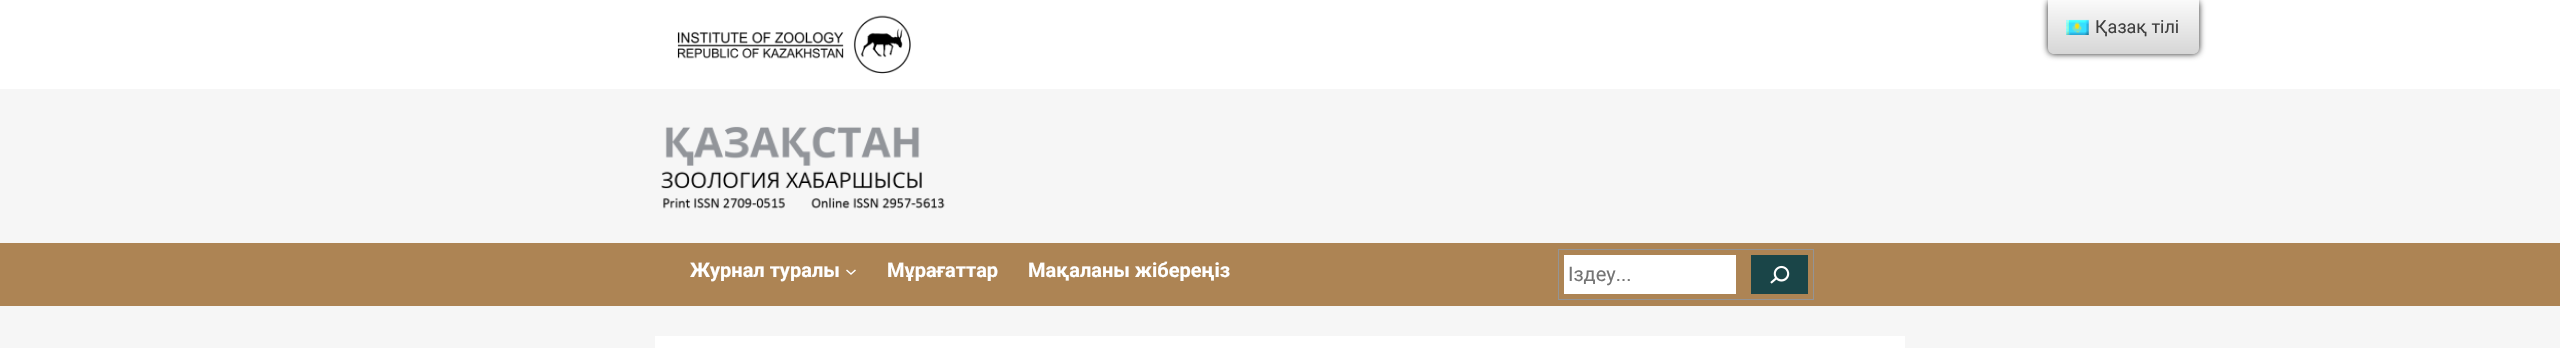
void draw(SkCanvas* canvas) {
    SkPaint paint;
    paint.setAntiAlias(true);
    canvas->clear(0xFFF6F6F6);
    paint.setColor(0xFFFFFFFF);
    canvas->drawRect(SkRect::MakeXYWH(0, 0, 2560, 89), paint);
    paint.setColor(0xFF212121);
    paint.setMaskFilter(SkMaskFilter::MakeBlur(kNormal_SkBlurStyle, 3));
    canvas->drawRoundRect(SkRect::MakeXYWH(2048, 0, 151, 54), 6, 6, paint);
    paint.setMaskFilter(nullptr);
    {
        const SkColor colors[] = {0xFFD6D6D6, 0xFFFAFAFA};
        const float stops[] = {0, 1};
        const SkPoint ends[] = {{2123, 54}, {2123, 0}};
        paint.setShader(SkGradientShader::MakeLinear(ends, colors, stops, 2, SkTileMode::kClamp));
        paint.setAlpha(255);
    }
    canvas->drawPath(SkPathBuilder().moveTo(2048, 0).lineTo(2199, 0).lineTo(2199, 48).cubicTo(2199, 51.5f, 2196.5f, 54, 2193, 54).lineTo(2054, 54).cubicTo(2050.5f, 54, 2048, 51.5f, 2048, 48).close().detach(), paint);
    canvas->drawImageRect(SkImages::DeferredFromEncodedData(SkData::MakeFromFileName("img1.png")), SkRect::MakeXYWH(2066, 19, 23, 16), SkSamplingOptions());
    SkFont font1(fontMgr->matchFamilyStyle("Roboto", SkFontStyle::Normal()), 18);
    font1.setSubpixel(true);
    paint.setShader(nullptr);
    paint.setColor(0xFF404040);
    canvas->drawString("Қазақ тілі", 2095, 33, font1, paint);
    canvas->drawImageRect(SkImages::DeferredFromEncodedData(SkData::MakeFromFileName("img2.png")), SkRect::MakeXYWH(677, 15, 234, 59), SkSamplingOptions());
    canvas->drawImageRect(SkImages::DeferredFromEncodedData(SkData::MakeFromFileName("img3.png")), SkRect::MakeXYWH(661, 126, 284, 83), SkSamplingOptions());
    paint.setColor(0xFFAD8454);
    canvas->drawRect(SkRect::MakeXYWH(0, 243, 2560, 63), paint);
    SkFont font2(fontMgr->matchFamilyStyle("Roboto", SkFontStyle::Bold()), 20);
    font2.setSubpixel(true);
    paint.setColor(0xFFFFFFFF);
    canvas->drawString("Журнал туралы", 690, 277, font2, paint);
    paint.setStyle(SkPaint::kStroke_Style);
    paint.setStrokeWidth(1.5f);
    canvas->drawPath(SkPathBuilder().moveTo(846.5f, 270).lineTo(851, 274).lineTo(855.5f, 270).detach(), paint);
    paint.setStyle(SkPaint::kFill_Style);
    canvas->drawString("Мұрағаттар", 887, 277, font2, paint);
    canvas->drawString("Мақаланы жібереңіз", 1028, 277, font2, paint);
    paint.setStyle(SkPaint::kStroke_Style);
    paint.setStrokeWidth(1);
    paint.setColor(0xFF949494);
    canvas->drawRect(SkRect::MakeXYWH(1558.5f, 249.5f, 255, 50), paint);
    paint.setStyle(SkPaint::kFill_Style);
    paint.setColor(0xFFFFFFFF);
    canvas->drawRect(SkRect::MakeXYWH(1564, 255, 172, 39), paint);
    SkFont font3(fontMgr->matchFamilyStyle("Roboto", SkFontStyle::Normal()), 20);
    font3.setSubpixel(true);
    paint.setColor(0xFF757575);
    canvas->drawString("Iздеу...", 1568, 281, font3, paint);
    paint.setColor(0xFF1A4548);
    canvas->drawRect(SkRect::MakeXYWH(1751, 255, 57, 39), paint);
    canvas->drawImageRect(SkImages::DeferredFromEncodedData(SkData::MakeFromFileName("img4.png")), SkRect::MakeXYWH(1770, 265, 20, 19), SkSamplingOptions());
    paint.setColor(0xFFFFFFFF);
    canvas->drawRect(SkRect::MakeXYWH(655, 336, 1250, 12), paint);
}
